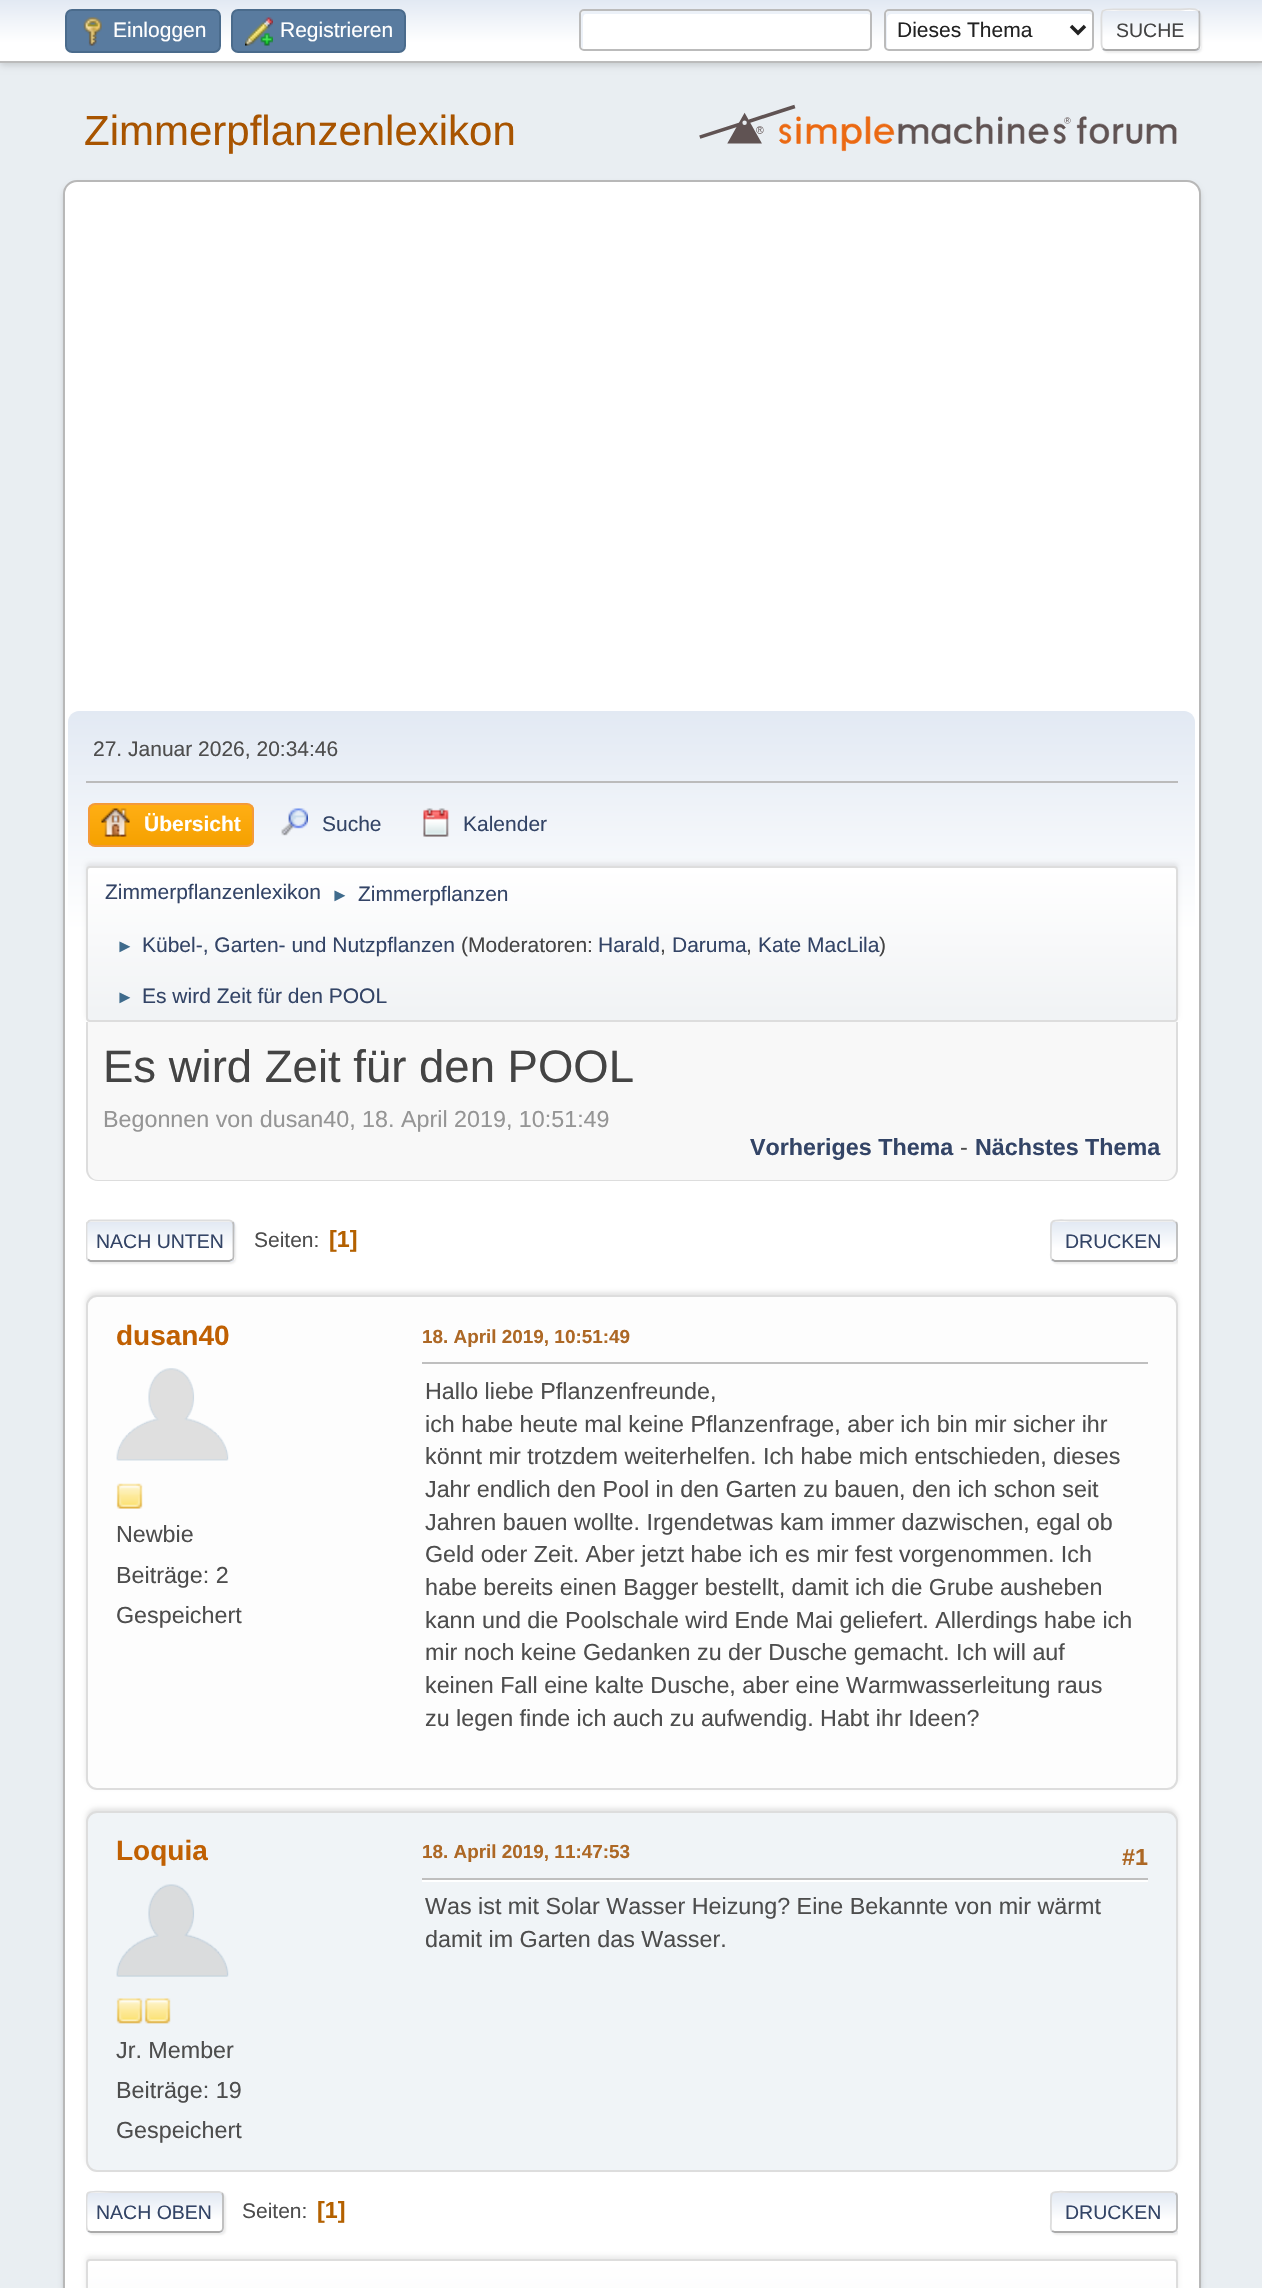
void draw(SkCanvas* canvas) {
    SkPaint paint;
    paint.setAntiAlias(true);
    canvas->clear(0xFFE9EEF2);
    paint.setColor(0x29000000);
    paint.setMaskFilter(SkMaskFilter::MakeBlur(kNormal_SkBlurStyle, 3.5f));
    canvas->drawRect(SkRect::MakeXYWH(0, 2, 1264, 63), paint);
    paint.setMaskFilter(nullptr);
    {
        const SkColor colors[] = {0xFFE2E9F3, 0xFFFFFFFF};
        const float stops[] = {0, 0.7f};
        const SkPoint ends[] = {{632, 0}, {632, 61}};
        paint.setShader(SkGradientShader::MakeLinear(ends, colors, stops, 2, SkTileMode::kClamp));
        paint.setAlpha(255);
    }
    canvas->drawRect(SkRect::MakeXYWH(0, 0, 1262, 61), paint);
    paint.setShader(nullptr);
    paint.setColor(0xFFBBBBBB);
    canvas->drawRect(SkRect::MakeXYWH(0, 61, 1262, 2), paint);
    paint.setColor(0xFF597B9F);
    canvas->drawRoundRect(SkRect::MakeXYWH(66, 10, 154, 42), 6, 6, paint);
    paint.setStyle(SkPaint::kStroke_Style);
    paint.setStrokeWidth(2);
    paint.setColor(0xFF4A6B8C);
    canvas->drawRoundRect(SkRect::MakeXYWH(66, 10, 154, 42), 6, 6, paint);
    canvas->drawImageRect(SkImages::DeferredFromEncodedData(SkData::MakeFromFileName("img1.png")), SkRect::MakeXYWH(83, 17, 19, 29), SkSamplingOptions());
    SkFont font1(fontMgr->matchFamilyStyle("Liberation Sans", SkFontStyle::Normal()), 21);
    font1.setSubpixel(true);
    paint.setStyle(SkPaint::kFill_Style);
    paint.setColor(0xFFFFFFFF);
    canvas->drawString("Einloggen", 113, 37, font1, paint);
    paint.setColor(0xFF597B9F);
    canvas->drawRoundRect(SkRect::MakeXYWH(232, 10, 173, 42), 6, 6, paint);
    paint.setStyle(SkPaint::kStroke_Style);
    paint.setColor(0xFF4A6B8C);
    canvas->drawRoundRect(SkRect::MakeXYWH(232, 10, 173, 42), 6, 6, paint);
    canvas->drawImageRect(SkImages::DeferredFromEncodedData(SkData::MakeFromFileName("img2.png")), SkRect::MakeXYWH(245, 17, 28, 29), SkSamplingOptions());
    paint.setStyle(SkPaint::kFill_Style);
    paint.setColor(0xFFFFFFFF);
    canvas->drawString("Registrieren", 280, 37, font1, paint);
    canvas->drawRoundRect(SkRect::MakeXYWH(579, 9, 293, 42), 5, 5, paint);
    paint.setColor(0xFFECF1F8);
    canvas->drawPath(SkPathBuilder().moveTo(586, 14).lineTo(868, 14).lineTo(870, 15).cubicTo(870, 13, 868, 11, 866, 11).lineTo(585, 11).cubicTo(583, 11, 581, 13, 581, 15).lineTo(581, 45).cubicTo(581, 46, 582, 48, 583, 48).lineTo(583, 18).cubicTo(583, 16, 584, 14, 586, 14).close().detach(), paint);
    paint.setStyle(SkPaint::kStroke_Style);
    paint.setColor(0xFFBBBBBB);
    canvas->drawRoundRect(SkRect::MakeXYWH(580, 10, 291, 40), 4, 4, paint);
    paint.setStyle(SkPaint::kFill_Style);
    paint.setColor(0xFFFFFFFF);
    canvas->drawRoundRect(SkRect::MakeXYWH(884, 9, 210, 42), 5, 5, paint);
    paint.setColor(0xFFECF1F8);
    canvas->drawPath(SkPathBuilder().moveTo(891, 14).lineTo(1090, 14).lineTo(1092, 15).cubicTo(1092, 13, 1090, 11, 1088, 11).lineTo(890, 11).cubicTo(888, 11, 886, 13, 886, 15).lineTo(886, 45).cubicTo(886, 46, 886, 47, 887, 48).lineTo(887, 18).cubicTo(887, 16, 889, 14, 891, 14).close().detach(), paint);
    paint.setStyle(SkPaint::kStroke_Style);
    paint.setColor(0xFFBBBBBB);
    canvas->drawRoundRect(SkRect::MakeXYWH(885, 10, 208, 40), 4, 4, paint);
    paint.setStrokeWidth(3.5f);
    paint.setColor(0xFF222222);
    canvas->drawPath(SkPathBuilder().moveTo(1071, 26).lineTo(1078, 33).lineTo(1085, 26).detach(), paint);
    paint.setStyle(SkPaint::kFill_Style);
    canvas->drawString("Dieses Thema", 897, 37, font1, paint);
    paint.setColor(0x91DDDDDD);
    paint.setMaskFilter(SkMaskFilter::MakeBlur(kNormal_SkBlurStyle, 1));
    canvas->drawRoundRect(SkRect::MakeXYWH(1103, 11, 99, 42), 5, 5, paint);
    paint.setMaskFilter(nullptr);
    canvas->save();
    canvas->clipPath(SkPathBuilder().moveTo(1106, 9).lineTo(1196, 9).cubicTo(1199, 9, 1201, 11, 1201, 14).lineTo(1201, 46).cubicTo(1201, 49, 1199, 51, 1196, 51).lineTo(1106, 51).cubicTo(1103, 51, 1101, 49, 1101, 46).lineTo(1101, 14).cubicTo(1101, 11, 1103, 9, 1106, 9).close().detach(), true);
    {
        const SkColor colors[] = {0xFFE2E9F3, 0xFFFFFFFF};
        const float stops[] = {0, 0.7f};
        const SkPoint ends[] = {{1151, -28}, {1151, 11}};
        paint.setShader(SkGradientShader::MakeLinear(ends, colors, stops, 2, SkTileMode::kClamp));
        paint.setAlpha(255);
    }
    canvas->drawRect(SkRect::MakeXYWH(1101, 9, 100, 2), paint);
    {
        const SkColor colors[] = {0xFFE2E9F3, 0xFFFFFFFF};
        const float stops[] = {0, 0.7f};
        const SkPoint ends[] = {{1151, 10}, {1151, 49}};
        paint.setShader(SkGradientShader::MakeLinear(ends, colors, stops, 2, SkTileMode::kClamp));
        paint.setAlpha(255);
    }
    canvas->drawRect(SkRect::MakeXYWH(1101, 11, 100, 38), paint);
    {
        const SkColor colors[] = {0xFFE2E9F3, 0xFFFFFFFF};
        const float stops[] = {0, 0.7f};
        const SkPoint ends[] = {{1151, 49}, {1151, 88}};
        paint.setShader(SkGradientShader::MakeLinear(ends, colors, stops, 2, SkTileMode::kClamp));
        paint.setAlpha(255);
    }
    canvas->drawRect(SkRect::MakeXYWH(1101, 49, 100, 2), paint);
    canvas->restore();
    paint.setStyle(SkPaint::kStroke_Style);
    paint.setStrokeWidth(1.8f);
    paint.setShader(nullptr);
    paint.setColor(0xFFBBBBBB);
    canvas->drawPath(SkPathBuilder().moveTo(1198.5f, 11).cubicTo(1199, 11.5f, 1199.5f, 13, 1199.5f, 14).lineTo(1199.5f, 45.5f).cubicTo(1199.5f, 46.5f, 1199, 48, 1198.5f, 48.5f).detach(), paint);
    paint.setColor(0xFFAAAAAA);
    canvas->drawPath(SkPathBuilder().moveTo(1198.5f, 48.5f).cubicTo(1197.5f, 49.5f, 1196.5f, 50, 1195, 50).lineTo(1106, 50).cubicTo(1105, 50, 1103.5f, 49.5f, 1103, 48.5f).detach(), paint);
    paint.setColor(0xFFDDDDDD);
    canvas->drawPath(SkPathBuilder().moveTo(1103, 48.5f).cubicTo(1101, 46.5f, 1101.5f, 42.5f, 1101.5f, 40).lineTo(1101.5f, 30).cubicTo(1101.5f, 7, 1098, 9.5f, 1121, 9.5f).lineTo(1180.5f, 9.5f).cubicTo(1180.5f, 9.5f, 1195, 7.5f, 1198.5f, 11).detach(), paint);
    SkFont font2(fontMgr->matchFamilyStyle("Liberation Sans", SkFontStyle::Normal()), 19.5f);
    font2.setSubpixel(true);
    paint.setStyle(SkPaint::kFill_Style);
    paint.setColor(0xFF444444);
    canvas->drawString("SUCHE", 1116, 37, font2, paint);
    SkFont font3(fontMgr->matchFamilyStyle("Liberation Sans", SkFontStyle::Normal()), 42);
    font3.setSubpixel(true);
    paint.setColor(0xFFA85400);
    canvas->drawString("Zimmerpflanzenlexikon", 84, 145, font3, paint);
    canvas->drawImageRect(SkImages::DeferredFromEncodedData(SkData::MakeFromFileName("img3.png")), SkRect::MakeXYWH(699, 104, 478, 48), SkSamplingOptions());
    paint.setColor(0x24000000);
    paint.setMaskFilter(SkMaskFilter::MakeBlur(kNormal_SkBlurStyle, 2.5f));
    canvas->drawRoundRect(SkRect::MakeXYWH(63, 184, 1138, 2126), 14, 14, paint);
    paint.setMaskFilter(nullptr);
    paint.setColor(0xFFFFFFFF);
    canvas->drawRoundRect(SkRect::MakeXYWH(64, 181, 1136, 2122), 13, 13, paint);
    paint.setStyle(SkPaint::kStroke_Style);
    paint.setStrokeWidth(2);
    paint.setColor(0xFFB8B8B8);
    canvas->drawRoundRect(SkRect::MakeXYWH(64, 181, 1136, 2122), 13, 13, paint);
    paint.setStyle(SkPaint::kFill_Style);
    {
        const SkColor colors[] = {0xFFE2E9F3, 0xFFFFFFFF};
        const float stops[] = {0, 0.7f};
        const SkPoint ends[] = {{632, 710}, {632, 1026}};
        paint.setShader(SkGradientShader::MakeLinear(ends, colors, stops, 2, SkTileMode::kClamp));
        paint.setAlpha(255);
    }
    canvas->drawPath(SkPathBuilder().moveTo(79, 711).lineTo(1184, 711).cubicTo(1190, 711, 1195, 716, 1195, 722).lineTo(1195, 1026).lineTo(68, 1026).lineTo(68, 722).cubicTo(68, 716, 73, 711, 79, 711).close().detach(), paint);
    paint.setShader(nullptr);
    paint.setColor(0xFFBBBBBB);
    canvas->drawRect(SkRect::MakeXYWH(86, 781, 1092, 2), paint);
    paint.setColor(0xFF4D4D4D);
    canvas->drawString("27. Januar 2026, 20:34:46", 93, 756, font1, paint);
    canvas->save();
    canvas->clipPath(SkPathBuilder().moveTo(95, 803).lineTo(247, 803).cubicTo(251, 803, 254, 806, 254, 810).lineTo(254, 840).cubicTo(254, 844, 251, 847, 247, 847).lineTo(95, 847).cubicTo(91, 847, 88, 844, 88, 840).lineTo(88, 810).cubicTo(88, 806, 91, 803, 95, 803).close().detach(), true);
    {
        const SkColor colors[] = {0xFFFFAE14, 0xFFF5A100};
        const float stops[] = {0, 1};
        const SkPoint ends[] = {{171, 805}, {171, 845}};
        paint.setShader(SkGradientShader::MakeLinear(ends, colors, stops, 2, SkTileMode::kClamp));
        paint.setAlpha(255);
    }
    canvas->drawRect(SkRect::MakeXYWH(88, 805, 166, 40), paint);
    canvas->restore();
    paint.setStyle(SkPaint::kStroke_Style);
    paint.setShader(nullptr);
    paint.setColor(0xFFF49A3A);
    canvas->drawRoundRect(SkRect::MakeXYWH(89, 804, 164, 42), 6, 6, paint);
    canvas->drawImageRect(SkImages::DeferredFromEncodedData(SkData::MakeFromFileName("img4.png")), SkRect::MakeXYWH(101, 808, 29, 29), SkSamplingOptions());
    SkFont font4(fontMgr->matchFamilyStyle("Liberation Sans", SkFontStyle::Bold()), 21);
    font4.setSubpixel(true);
    paint.setStyle(SkPaint::kFill_Style);
    paint.setColor(0xFFFFFFFF);
    canvas->drawString("Übersicht", 144, 831, font4, paint);
    canvas->drawImageRect(SkImages::DeferredFromEncodedData(SkData::MakeFromFileName("img5.png")), SkRect::MakeXYWH(281, 808, 27, 28), SkSamplingOptions());
    paint.setColor(0xFF334466);
    canvas->drawString("Suche", 322, 831, font1, paint);
    canvas->drawImageRect(SkImages::DeferredFromEncodedData(SkData::MakeFromFileName("img6.png")), SkRect::MakeXYWH(423, 808, 26, 29), SkSamplingOptions());
    canvas->drawString("Kalender", 463, 831, font1, paint);
    paint.setColor(0x14000000);
    paint.setMaskFilter(SkMaskFilter::MakeBlur(kNormal_SkBlurStyle, 2));
    canvas->drawRoundRect(SkRect::MakeXYWH(86, 863, 1092, 156), 4, 4, paint);
    paint.setMaskFilter(nullptr);
    canvas->save();
    canvas->clipPath(SkPathBuilder().moveTo(90, 866).lineTo(1174, 866).cubicTo(1176, 866, 1178, 868, 1178, 870).lineTo(1178, 1018).cubicTo(1178, 1020, 1176, 1022, 1174, 1022).lineTo(90, 1022).cubicTo(88, 1022, 86, 1020, 86, 1018).lineTo(86, 870).cubicTo(86, 868, 88, 866, 90, 866).close().detach(), true);
    {
        const SkColor colors[] = {0xFFFFFFFF, 0xFFF1F3F5};
        const float stops[] = {0, 0.95f};
        const SkPoint ends[] = {{632, 868}, {632, 1020}};
        paint.setShader(SkGradientShader::MakeLinear(ends, colors, stops, 2, SkTileMode::kClamp));
        paint.setAlpha(255);
    }
    canvas->drawRect(SkRect::MakeXYWH(86, 868, 1092, 152), paint);
    canvas->restore();
    paint.setStyle(SkPaint::kStroke_Style);
    paint.setShader(nullptr);
    paint.setColor(0xFFDDDDDD);
    canvas->drawRoundRect(SkRect::MakeXYWH(87, 867, 1090, 154), 3, 3, paint);
    paint.setStyle(SkPaint::kFill_Style);
    paint.setColor(0xFF334466);
    canvas->drawString("Zimmerpflanzenlexikon", 105, 899, font1, paint);
    SkFont font5(fontMgr->matchFamilyStyle("Liberation Sans", SkFontStyle::Normal()), 18);
    font5.setSubpixel(true);
    paint.setColor(0xFF3F6B8C);
    canvas->drawString("►", 331, 901, font5, paint);
    paint.setColor(0xFF334466);
    canvas->drawString("Zimmerpflanzen", 358, 901, font1, paint);
    paint.setColor(0xFF3F6B8C);
    canvas->drawString("►", 116, 952, font5, paint);
    paint.setColor(0xFF334466);
    canvas->drawString("Kübel-, Garten- und Nutzpflanzen", 142, 952, font1, paint);
    paint.setColor(0xFF444444);
    canvas->drawString("(Moderatoren:", 461, 952, font1, paint);
    paint.setColor(0xFF334466);
    canvas->drawString("Harald", 598, 952, font1, paint);
    paint.setColor(0xFF444444);
    canvas->drawString(",", 660, 952, font1, paint);
    paint.setColor(0xFF334466);
    canvas->drawString("Daruma", 672, 952, font1, paint);
    paint.setColor(0xFF444444);
    canvas->drawString(",", 746, 952, font1, paint);
    paint.setColor(0xFF334466);
    canvas->drawString("Kate MacLila", 758, 952, font1, paint);
    paint.setColor(0xFF444444);
    canvas->drawString(")", 879, 952, font1, paint);
    paint.setColor(0xFF3F6B8C);
    canvas->drawString("►", 116, 1003, font5, paint);
    paint.setColor(0xFF334466);
    canvas->drawString("Es wird Zeit für den POOL", 142, 1003, font1, paint);
    paint.setColor(0xFFF8F8F8);
    canvas->drawPath(SkPathBuilder().moveTo(86, 1022).lineTo(1178, 1022).lineTo(1178, 1169).cubicTo(1178, 1175.5f, 1172.5f, 1181, 1166, 1181).lineTo(98, 1181).cubicTo(91.5f, 1181, 86, 1175.5f, 86, 1169).close().detach(), paint);
    paint.setColor(0xFFDDDDDD);
    canvas->drawPath(SkPathBuilder(SkPathFillType::kEvenOdd).moveTo(86, 1022).lineTo(1178, 1022).lineTo(1178, 1169).cubicTo(1178, 1176, 1172, 1181, 1166, 1181).lineTo(98, 1181).cubicTo(91, 1181, 86, 1176, 86, 1169).close().moveTo(88, 1022).lineTo(1176, 1022).lineTo(1176, 1169).cubicTo(1176, 1175, 1171, 1180, 1166, 1180).lineTo(98, 1180).cubicTo(92, 1180, 88, 1175, 88, 1169).close().detach(), paint);
    SkFont font6(fontMgr->matchFamilyStyle("Liberation Sans", SkFontStyle::Normal()), 45.5f);
    font6.setSubpixel(true);
    paint.setColor(0xFF444444);
    canvas->drawString("Es wird Zeit für den POOL", 103, 1082, font6, paint);
    SkFont font7(fontMgr->matchFamilyStyle("Liberation Sans", SkFontStyle::Normal()), 23.3f);
    font7.setSubpixel(true);
    paint.setColor(0xFF959595);
    canvas->drawString("Begonnen von dusan40, 18. April 2019, 10:51:49", 103, 1127, font7, paint);
    SkFont font8(fontMgr->matchFamilyStyle("Liberation Sans", SkFontStyle::Bold()), 23.3f);
    font8.setSubpixel(true);
    paint.setColor(0xFF334466);
    canvas->drawString("Vorheriges Thema", 750, 1155, font8, paint);
    paint.setColor(0xFF4D4D4D);
    canvas->drawString("-", 960, 1155, font7, paint);
    paint.setColor(0xFF334466);
    canvas->drawString("Nächstes Thema", 975, 1155, font8, paint);
    paint.setColor(0x91DDDDDD);
    paint.setMaskFilter(SkMaskFilter::MakeBlur(kNormal_SkBlurStyle, 1));
    canvas->drawRoundRect(SkRect::MakeXYWH(88, 1222, 148, 42), 5, 5, paint);
    paint.setMaskFilter(nullptr);
    paint.setColor(0xFFFFFFFF);
    canvas->drawRoundRect(SkRect::MakeXYWH(86, 1220, 149, 42), 5, 5, paint);
    canvas->save();
    canvas->clipPath(SkPathBuilder().moveTo(91, 1220).lineTo(230, 1220).cubicTo(233, 1220, 235, 1222, 235, 1225).lineTo(235, 1257).cubicTo(235, 1260, 233, 1262, 230, 1262).lineTo(91, 1262).cubicTo(88, 1262, 86, 1260, 86, 1257).lineTo(86, 1225).cubicTo(86, 1222, 88, 1220, 91, 1220).close().detach(), true);
    {
        const SkColor colors[] = {0xFFE2E9F3, 0xFFFFFFFF};
        const float stops[] = {0, 0.7f};
        const SkPoint ends[] = {{160, 1222}, {160, 1260}};
        paint.setShader(SkGradientShader::MakeLinear(ends, colors, stops, 2, SkTileMode::kClamp));
        paint.setAlpha(255);
    }
    canvas->drawRect(SkRect::MakeXYWH(86, 1222, 149, 38), paint);
    {
        const SkColor colors[] = {0xFFE2E9F3, 0xFFFFFFFF};
        const float stops[] = {0, 0.7f};
        const SkPoint ends[] = {{160, 1260}, {160, 1299}};
        paint.setShader(SkGradientShader::MakeLinear(ends, colors, stops, 2, SkTileMode::kClamp));
        paint.setAlpha(255);
    }
    canvas->drawRect(SkRect::MakeXYWH(86, 1260, 149, 2), paint);
    canvas->restore();
    paint.setStyle(SkPaint::kStroke_Style);
    paint.setStrokeWidth(1.8f);
    paint.setShader(nullptr);
    paint.setColor(0xFFBBBBBB);
    canvas->drawPath(SkPathBuilder().moveTo(232.5f, 1222).cubicTo(233, 1222.5f, 233.5f, 1224, 233.5f, 1225).lineTo(233.5f, 1256.5f).cubicTo(233.5f, 1257.5f, 233, 1259, 232.5f, 1259.5f).detach(), paint);
    paint.setColor(0xFFAAAAAA);
    canvas->drawPath(SkPathBuilder().moveTo(232.5f, 1259.5f).lineTo(229, 1261).lineTo(90.5f, 1261).lineTo(88, 1259.5f).detach(), paint);
    canvas->save();
    canvas->clipRect(SkRect::MakeXYWH(86, 1208, 1092, 66));
    paint.setColor(0xFFDDDDDD);
    canvas->drawPath(SkPathBuilder().moveTo(88, 1259.5f).cubicTo(87, 1259, 86.5f, 1257.5f, 86.5f, 1256.5f).lineTo(86.5f, 1225).cubicTo(86.5f, 1224, 87, 1222.5f, 88, 1222).cubicTo(88.5f, 1221, 90, 1220.5f, 91, 1220.5f).lineTo(229, 1220.5f).cubicTo(230.5f, 1220.5f, 231.5f, 1221, 232.5f, 1222).detach(), paint);
    canvas->restore();
    paint.setStyle(SkPaint::kFill_Style);
    paint.setColor(0xFF334466);
    canvas->drawString("NACH UNTEN", 96, 1248, font2, paint);
    paint.setColor(0xFF4D4D4D);
    canvas->drawString("Seiten:", 254, 1247, font1, paint);
    paint.setColor(0xFFB46100);
    canvas->drawString("[1]", 329, 1247, font8, paint);
    canvas->save();
    canvas->clipRect(SkRect::MakeXYWH(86, 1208, 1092, 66));
    paint.setColor(0x91DDDDDD);
    paint.setMaskFilter(SkMaskFilter::MakeBlur(kNormal_SkBlurStyle, 1));
    canvas->drawRoundRect(SkRect::MakeXYWH(1052, 1222, 128, 42), 5, 5, paint);
    paint.setMaskFilter(nullptr);
    canvas->restore();
    paint.setColor(0xFFFFFFFF);
    canvas->drawRoundRect(SkRect::MakeXYWH(1050, 1220, 128, 42), 5, 5, paint);
    canvas->save();
    canvas->clipPath(SkPathBuilder().moveTo(1055, 1220).lineTo(1173, 1220).cubicTo(1176, 1220, 1178, 1222, 1178, 1225).lineTo(1178, 1257).cubicTo(1178, 1260, 1176, 1262, 1173, 1262).lineTo(1055, 1262).cubicTo(1052, 1262, 1050, 1260, 1050, 1257).lineTo(1050, 1225).cubicTo(1050, 1222, 1052, 1220, 1055, 1220).close().detach(), true);
    {
        const SkColor colors[] = {0xFFE2E9F3, 0xFFFFFFFF};
        const float stops[] = {0, 0.7f};
        const SkPoint ends[] = {{1114, 1222}, {1114, 1260}};
        paint.setShader(SkGradientShader::MakeLinear(ends, colors, stops, 2, SkTileMode::kClamp));
        paint.setAlpha(255);
    }
    canvas->drawRect(SkRect::MakeXYWH(1050, 1222, 128, 38), paint);
    {
        const SkColor colors[] = {0xFFE2E9F3, 0xFFFFFFFF};
        const float stops[] = {0, 0.7f};
        const SkPoint ends[] = {{1114, 1260}, {1114, 1299}};
        paint.setShader(SkGradientShader::MakeLinear(ends, colors, stops, 2, SkTileMode::kClamp));
        paint.setAlpha(255);
    }
    canvas->drawRect(SkRect::MakeXYWH(1050, 1260, 128, 2), paint);
    canvas->restore();
    paint.setStyle(SkPaint::kStroke_Style);
    paint.setShader(nullptr);
    paint.setColor(0xFFBBBBBB);
    canvas->drawPath(SkPathBuilder().moveTo(1175.5f, 1222).cubicTo(1176.5f, 1222.5f, 1177, 1224, 1177, 1225).lineTo(1177, 1256.5f).cubicTo(1177, 1257.5f, 1176.5f, 1259, 1175.5f, 1259.5f).detach(), paint);
    paint.setColor(0xFFAAAAAA);
    canvas->drawPath(SkPathBuilder().moveTo(1175.5f, 1259.5f).lineTo(1172.5f, 1261).lineTo(1055, 1261).lineTo(1052, 1259.5f).detach(), paint);
    paint.setColor(0xFFDDDDDD);
    canvas->drawPath(SkPathBuilder().moveTo(1052, 1259.5f).cubicTo(1050, 1257.5f, 1051, 1253.5f, 1051, 1251).lineTo(1051, 1241).cubicTo(1051, 1216, 1047.5f, 1220.5f, 1075, 1220.5f).lineTo(1172.5f, 1220.5f).lineTo(1175.5f, 1222).detach(), paint);
    paint.setStyle(SkPaint::kFill_Style);
    paint.setColor(0xFF334466);
    canvas->drawString("DRUCKEN", 1065, 1248, font2, paint);
    paint.setColor(0x1A000000);
    paint.setMaskFilter(SkMaskFilter::MakeBlur(kNormal_SkBlurStyle, 2));
    canvas->drawRoundRect(SkRect::MakeXYWH(86, 1292, 1092, 495), 11, 11, paint);
    paint.setMaskFilter(nullptr);
    paint.setColor(0xFFFDFDFD);
    canvas->drawRoundRect(SkRect::MakeXYWH(87, 1296, 1090, 493), 10, 10, paint);
    paint.setStyle(SkPaint::kStroke_Style);
    paint.setStrokeWidth(2);
    paint.setColor(0xFFDDDDDD);
    canvas->drawRoundRect(SkRect::MakeXYWH(87, 1296, 1090, 493), 10, 10, paint);
    SkFont font9(fontMgr->matchFamilyStyle("Liberation Sans", SkFontStyle::Bold()), 28);
    font9.setSubpixel(true);
    paint.setStyle(SkPaint::kFill_Style);
    paint.setColor(0xFFC06002);
    canvas->drawString("dusan40", 116, 1345, font9, paint);
    canvas->drawImageRect(SkImages::DeferredFromEncodedData(SkData::MakeFromFileName("img7.png")), SkRect::MakeXYWH(116, 1368, 113, 93), SkSamplingOptions());
    canvas->drawImageRect(SkImages::DeferredFromEncodedData(SkData::MakeFromFileName("img8.png")), SkRect::MakeXYWH(116, 1483, 27, 26), SkSamplingOptions());
    paint.setColor(0xFF4D4D4D);
    canvas->drawString("Newbie", 116, 1542, font7, paint);
    canvas->drawString("Beiträge: 2", 116, 1583, font7, paint);
    canvas->drawString("Gespeichert", 116, 1623, font7, paint);
    SkFont font10(fontMgr->matchFamilyStyle("Liberation Sans", SkFontStyle::Bold()), 18.9f);
    font10.setSubpixel(true);
    paint.setColor(0xFFAD6825);
    canvas->drawString("18. April 2019, 10:51:49", 422, 1343, font10, paint);
    paint.setColor(0xFFBFBFBF);
    canvas->drawRect(SkRect::MakeXYWH(422, 1362, 726, 2), paint);
    paint.setColor(0xFF4D4D4D);
    canvas->drawString("Hallo liebe Pflanzenfreunde,", 425, 1399, font7, paint);
    canvas->drawString("ich habe heute mal keine Pflanzenfrage, aber ich bin mir sicher ihr", 425, 1432, font7, paint);
    canvas->drawString("könnt mir trotzdem weiterhelfen. Ich habe mich entschieden, dieses", 425, 1464, font7, paint);
    canvas->drawString("Jahr endlich den Pool in den Garten zu bauen, den ich schon seit", 425, 1497, font7, paint);
    canvas->drawString("Jahren bauen wollte. Irgendetwas kam immer dazwischen, egal ob", 425, 1530, font7, paint);
    canvas->drawString("Geld oder Zeit. Aber jetzt habe ich es mir fest vorgenommen. Ich", 425, 1562, font7, paint);
    canvas->drawString("habe bereits einen Bagger bestellt, damit ich die Grube ausheben", 425, 1595, font7, paint);
    canvas->drawString("kann und die Poolschale wird Ende Mai geliefert. Allerdings habe ich", 425, 1628, font7, paint);
    canvas->drawString("mir noch keine Gedanken zu der Dusche gemacht. Ich will auf", 425, 1660, font7, paint);
    canvas->drawString("keinen Fall eine kalte Dusche, aber eine Warmwasserleitung raus", 425, 1693, font7, paint);
    canvas->drawString("zu legen finde ich auch zu aufwendig. Habt ihr Ideen?", 425, 1726, font7, paint);
    paint.setColor(0x1A000000);
    paint.setMaskFilter(SkMaskFilter::MakeBlur(kNormal_SkBlurStyle, 2));
    canvas->drawRoundRect(SkRect::MakeXYWH(86, 1808, 1092, 360), 11, 11, paint);
    paint.setMaskFilter(nullptr);
    paint.setColor(0xFFF0F4F7);
    canvas->drawRoundRect(SkRect::MakeXYWH(87, 1812, 1090, 359), 10, 10, paint);
    paint.setStyle(SkPaint::kStroke_Style);
    paint.setColor(0xFFDDDDDD);
    canvas->drawRoundRect(SkRect::MakeXYWH(87, 1812, 1090, 359), 10, 10, paint);
    paint.setStyle(SkPaint::kFill_Style);
    paint.setColor(0xFFC06002);
    canvas->drawString("Loquia", 116, 1860, font9, paint);
    canvas->drawImageRect(SkImages::DeferredFromEncodedData(SkData::MakeFromFileName("img9.png")), SkRect::MakeXYWH(116, 1884, 113, 93), SkSamplingOptions());
    canvas->drawImageRect(SkImages::DeferredFromEncodedData(SkData::MakeFromFileName("img10.png")), SkRect::MakeXYWH(116, 1998, 27, 26), SkSamplingOptions());
    canvas->drawImageRect(SkImages::DeferredFromEncodedData(SkData::MakeFromFileName("img10.png")), SkRect::MakeXYWH(144, 1998, 27, 26), SkSamplingOptions());
    paint.setColor(0xFF4D4D4D);
    canvas->drawString("Jr. Member", 116, 2058, font7, paint);
    canvas->drawString("Beiträge: 19", 116, 2098, font7, paint);
    canvas->drawString("Gespeichert", 116, 2138, font7, paint);
    paint.setColor(0xFFAD6825);
    canvas->drawString("18. April 2019, 11:47:53", 422, 1858, font10, paint);
    canvas->drawString("#1", 1122, 1865, font8, paint);
    paint.setColor(0xFFFFFFFF);
    canvas->drawRect(SkRect::MakeXYWH(422, 1880, 726, 2), paint);
    paint.setColor(0xFFBFBFBF);
    canvas->drawRect(SkRect::MakeXYWH(422, 1878, 726, 2), paint);
    paint.setColor(0xFF4D4D4D);
    canvas->drawString("Was ist mit Solar Wasser Heizung? Eine Bekannte von mir wärmt", 425, 1914, font7, paint);
    canvas->drawString("damit im Garten das Wasser.", 425, 1947, font7, paint);
    paint.setColor(0x91DDDDDD);
    paint.setMaskFilter(SkMaskFilter::MakeBlur(kNormal_SkBlurStyle, 1));
    canvas->drawRoundRect(SkRect::MakeXYWH(88, 2193, 138, 42), 5, 5, paint);
    paint.setMaskFilter(nullptr);
    paint.setColor(0xFFFFFFFF);
    canvas->drawRoundRect(SkRect::MakeXYWH(86, 2191, 138, 42), 5, 5, paint);
    canvas->save();
    canvas->clipPath(SkPathBuilder().moveTo(91, 2191).lineTo(219, 2191).cubicTo(222, 2191, 224, 2193, 224, 2196).lineTo(224, 2228).cubicTo(224, 2231, 222, 2233, 219, 2233).lineTo(91, 2233).cubicTo(88, 2233, 86, 2231, 86, 2228).lineTo(86, 2196).cubicTo(86, 2193, 88, 2191, 91, 2191).close().detach(), true);
    {
        const SkColor colors[] = {0xFFE2E9F3, 0xFFFFFFFF};
        const float stops[] = {0, 0.7f};
        const SkPoint ends[] = {{155, 2193}, {155, 2231}};
        paint.setShader(SkGradientShader::MakeLinear(ends, colors, stops, 2, SkTileMode::kClamp));
        paint.setAlpha(255);
    }
    canvas->drawRect(SkRect::MakeXYWH(86, 2193, 138, 38), paint);
    {
        const SkColor colors[] = {0xFFE2E9F3, 0xFFFFFFFF};
        const float stops[] = {0, 0.7f};
        const SkPoint ends[] = {{155, 2231}, {155, 2270}};
        paint.setShader(SkGradientShader::MakeLinear(ends, colors, stops, 2, SkTileMode::kClamp));
        paint.setAlpha(255);
    }
    canvas->drawRect(SkRect::MakeXYWH(86, 2231, 138, 2), paint);
    canvas->restore();
    paint.setStyle(SkPaint::kStroke_Style);
    paint.setStrokeWidth(1.8f);
    paint.setShader(nullptr);
    paint.setColor(0xFFBBBBBB);
    canvas->drawPath(SkPathBuilder().moveTo(222, 2193).cubicTo(222.5f, 2194, 223, 2195, 223, 2196).lineTo(223, 2228).cubicTo(223, 2229, 222.5f, 2230, 222, 2231).detach(), paint);
    paint.setColor(0xFFAAAAAA);
    canvas->drawPath(SkPathBuilder().moveTo(222, 2231).lineTo(219, 2232).lineTo(112.5f, 2232).lineTo(91, 2232).lineTo(88, 2231).detach(), paint);
    canvas->save();
    canvas->clipRect(SkRect::MakeXYWH(86, 2179, 1092, 66));
    paint.setColor(0xFFDDDDDD);
    canvas->drawPath(SkPathBuilder().moveTo(88, 2231).cubicTo(86, 2229, 86.5f, 2225, 86.5f, 2222.5f).lineTo(86.5f, 2212).cubicTo(86.5f, 2186.5f, 83.5f, 2192, 112.5f, 2192).lineTo(219, 2192).lineTo(222, 2193).detach(), paint);
    canvas->restore();
    paint.setStyle(SkPaint::kFill_Style);
    paint.setColor(0xFF334466);
    canvas->drawString("NACH OBEN", 96, 2219, font2, paint);
    paint.setColor(0xFF4D4D4D);
    canvas->drawString("Seiten:", 242, 2218, font1, paint);
    paint.setColor(0xFFB46100);
    canvas->drawString("[1]", 317, 2218, font8, paint);
    canvas->save();
    canvas->clipRect(SkRect::MakeXYWH(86, 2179, 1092, 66));
    paint.setColor(0x91DDDDDD);
    paint.setMaskFilter(SkMaskFilter::MakeBlur(kNormal_SkBlurStyle, 1));
    canvas->drawRoundRect(SkRect::MakeXYWH(1052, 2193, 128, 42), 5, 5, paint);
    paint.setMaskFilter(nullptr);
    canvas->restore();
    paint.setColor(0xFFFFFFFF);
    canvas->drawRoundRect(SkRect::MakeXYWH(1050, 2191, 128, 42), 5, 5, paint);
    canvas->save();
    canvas->clipPath(SkPathBuilder().moveTo(1055, 2191).lineTo(1173, 2191).cubicTo(1176, 2191, 1178, 2193, 1178, 2196).lineTo(1178, 2228).cubicTo(1178, 2231, 1176, 2233, 1173, 2233).lineTo(1055, 2233).cubicTo(1052, 2233, 1050, 2231, 1050, 2228).lineTo(1050, 2196).cubicTo(1050, 2193, 1052, 2191, 1055, 2191).close().detach(), true);
    {
        const SkColor colors[] = {0xFFE2E9F3, 0xFFFFFFFF};
        const float stops[] = {0, 0.7f};
        const SkPoint ends[] = {{1114, 2193}, {1114, 2231}};
        paint.setShader(SkGradientShader::MakeLinear(ends, colors, stops, 2, SkTileMode::kClamp));
        paint.setAlpha(255);
    }
    canvas->drawRect(SkRect::MakeXYWH(1050, 2193, 128, 38), paint);
    {
        const SkColor colors[] = {0xFFE2E9F3, 0xFFFFFFFF};
        const float stops[] = {0, 0.7f};
        const SkPoint ends[] = {{1114, 2231}, {1114, 2270}};
        paint.setShader(SkGradientShader::MakeLinear(ends, colors, stops, 2, SkTileMode::kClamp));
        paint.setAlpha(255);
    }
    canvas->drawRect(SkRect::MakeXYWH(1050, 2231, 128, 2), paint);
    canvas->restore();
    paint.setStyle(SkPaint::kStroke_Style);
    paint.setShader(nullptr);
    paint.setColor(0xFFBBBBBB);
    canvas->drawPath(SkPathBuilder().moveTo(1175.5f, 2193).cubicTo(1176.5f, 2194, 1177, 2195, 1177, 2196).lineTo(1177, 2228).cubicTo(1177, 2229, 1176.5f, 2230, 1175.5f, 2231).detach(), paint);
    paint.setColor(0xFFAAAAAA);
    canvas->drawPath(SkPathBuilder().moveTo(1175.5f, 2231).lineTo(1172.5f, 2232).lineTo(1055, 2232).lineTo(1052, 2231).detach(), paint);
    paint.setColor(0xFFDDDDDD);
    canvas->drawPath(SkPathBuilder().moveTo(1052, 2231).cubicTo(1050, 2229, 1051, 2225, 1051, 2222.5f).lineTo(1051, 2212).cubicTo(1051, 2187.5f, 1047.5f, 2192, 1075, 2192).lineTo(1172.5f, 2192).lineTo(1175.5f, 2193).detach(), paint);
    paint.setStyle(SkPaint::kFill_Style);
    paint.setColor(0xFF334466);
    canvas->drawString("DRUCKEN", 1065, 2219, font2, paint);
    paint.setColor(0x14000000);
    paint.setMaskFilter(SkMaskFilter::MakeBlur(kNormal_SkBlurStyle, 2));
    canvas->drawRoundRect(SkRect::MakeXYWH(86, 2256, 1092, 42), 4, 4, paint);
    paint.setMaskFilter(nullptr);
    {
        const SkColor colors[] = {0xFFFFFFFF, 0xFFF1F3F5};
        const float stops[] = {0, 0.95f};
        const SkPoint ends[] = {{632, 2261}, {632, 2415}};
        paint.setShader(SkGradientShader::MakeLinear(ends, colors, stops, 2, SkTileMode::kClamp));
        paint.setAlpha(255);
    }
    canvas->drawRect(SkRect::MakeXYWH(86, 2261, 1092, 27), paint);
    paint.setStyle(SkPaint::kStroke_Style);
    paint.setStrokeWidth(2);
    paint.setShader(nullptr);
    paint.setColor(0xFFDDDDDD);
    canvas->drawRoundRect(SkRect::MakeXYWH(87, 2260, 1090, 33), 3, 3, paint);
}
